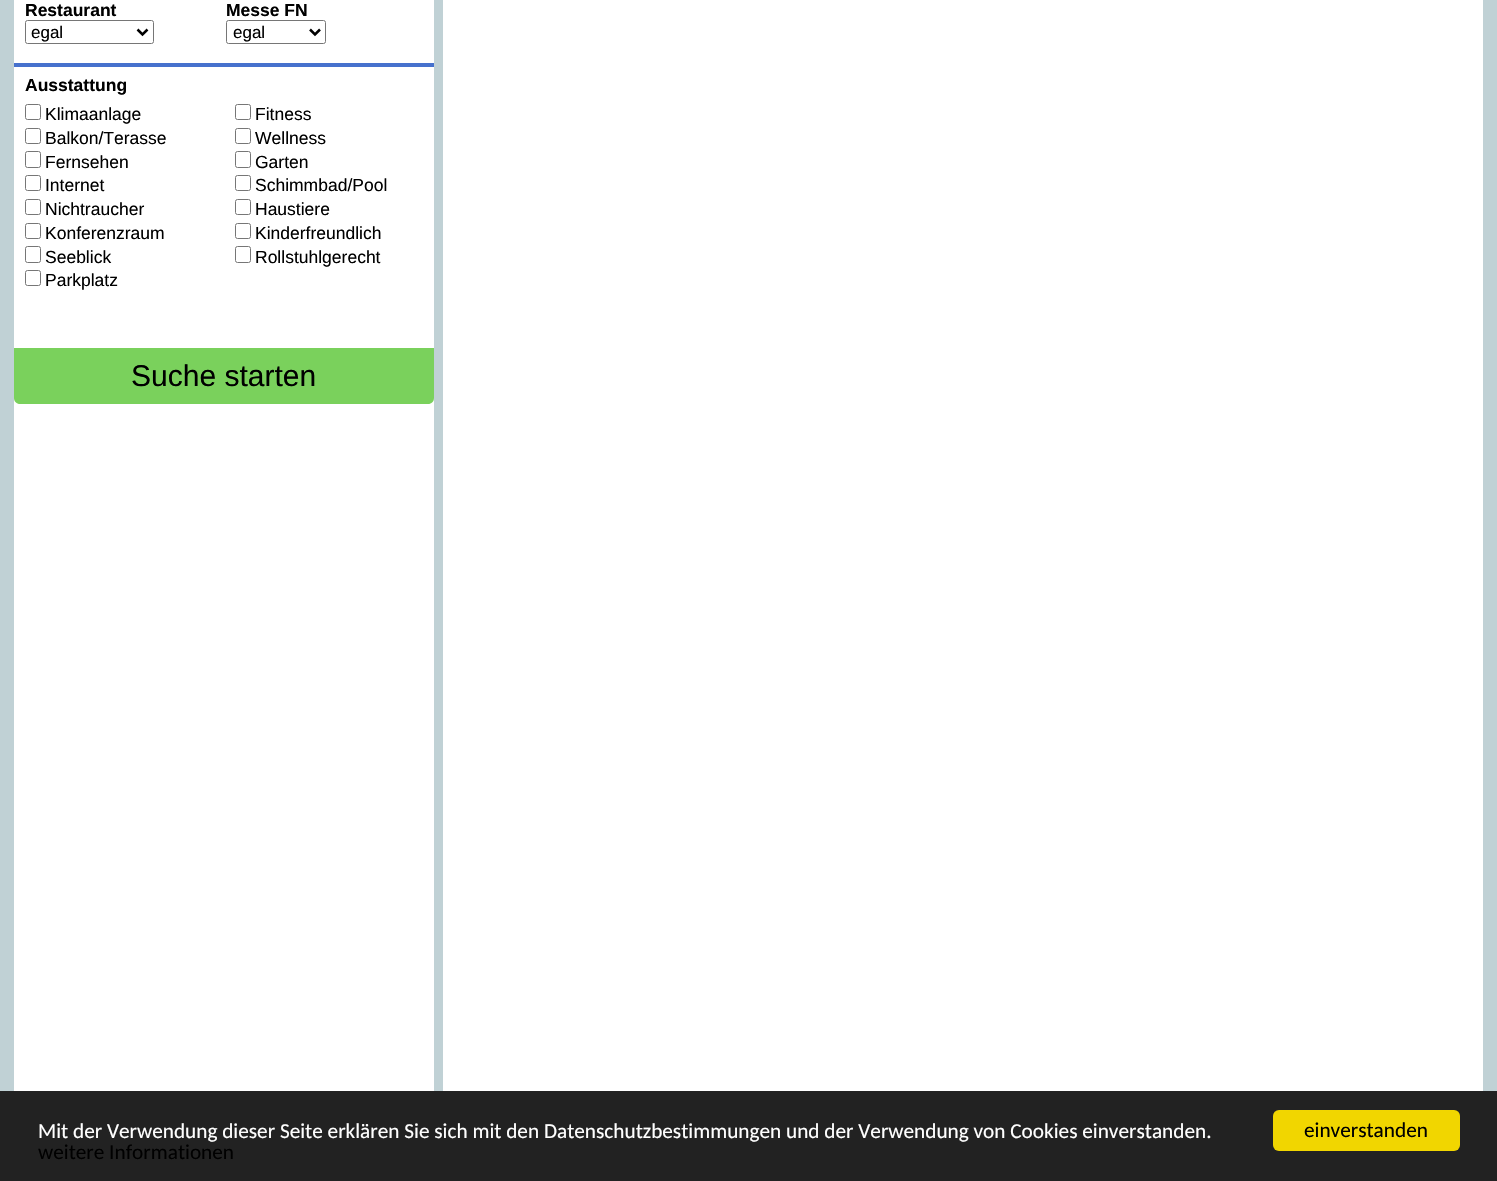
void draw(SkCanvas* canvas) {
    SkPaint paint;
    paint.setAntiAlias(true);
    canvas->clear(0xFFC0D1D5);
    paint.setColor(0xFFFFFFFF);
    canvas->drawRect(SkRect::MakeXYWH(14, 0, 420, 1091), paint);
    SkFont font1(fontMgr->matchFamilyStyle("Liberation Sans", SkFontStyle::Bold()), 17.5f);
    font1.setSubpixel(true);
    paint.setColor(0xFF000000);
    canvas->drawString("Restaurant", 25, 16, font1, paint);
    paint.setStyle(SkPaint::kStroke_Style);
    paint.setStrokeWidth(1);
    paint.setColor(0xFF767676);
    canvas->drawRoundRect(SkRect::MakeXYWH(25.5f, 20.5f, 128, 23), 2, 2, paint);
    paint.setStrokeWidth(2.5f);
    paint.setColor(0xFF000000);
    canvas->drawPath(SkPathBuilder().moveTo(137.5f, 29.5f).lineTo(142.5f, 34.5f).lineTo(147.5f, 29.5f).detach(), paint);
    SkFont font2(fontMgr->matchFamilyStyle("Liberation Sans", SkFontStyle::Normal()), 17);
    font2.setSubpixel(true);
    paint.setStyle(SkPaint::kFill_Style);
    canvas->drawString("egal", 31, 38, font2, paint);
    canvas->drawString("Messe FN", 226, 16, font1, paint);
    paint.setStyle(SkPaint::kStroke_Style);
    paint.setStrokeWidth(1);
    paint.setColor(0xFF767676);
    canvas->drawRoundRect(SkRect::MakeXYWH(226.5f, 20.5f, 99, 23), 2, 2, paint);
    paint.setStrokeWidth(2.5f);
    paint.setColor(0xFF000000);
    canvas->drawPath(SkPathBuilder().moveTo(310, 29.5f).lineTo(315, 34.5f).lineTo(320, 29.5f).detach(), paint);
    paint.setStyle(SkPaint::kFill_Style);
    canvas->drawString("egal", 233, 38, font2, paint);
    paint.setColor(0xFF4671CD);
    canvas->drawRect(SkRect::MakeXYWH(14, 63, 420, 4), paint);
    paint.setColor(0xFF000000);
    canvas->drawString("Ausstattung", 25, 91, font1, paint);
    paint.setStyle(SkPaint::kStroke_Style);
    paint.setStrokeWidth(1);
    paint.setColor(0xFF767676);
    canvas->drawRoundRect(SkRect::MakeXYWH(25.5f, 104.5f, 15, 15), 2, 2, paint);
    SkFont font3(fontMgr->matchFamilyStyle("Liberation Sans", SkFontStyle::Normal()), 17.5f);
    font3.setSubpixel(true);
    paint.setStyle(SkPaint::kFill_Style);
    paint.setColor(0xFF000000);
    canvas->drawString("Klimaanlage", 45, 120, font3, paint);
    paint.setStyle(SkPaint::kStroke_Style);
    paint.setColor(0xFF767676);
    canvas->drawRoundRect(SkRect::MakeXYWH(25.5f, 128.5f, 15, 15), 2, 2, paint);
    paint.setStyle(SkPaint::kFill_Style);
    paint.setColor(0xFF000000);
    canvas->drawString("Balkon/Terasse", 45, 144, font3, paint);
    paint.setStyle(SkPaint::kStroke_Style);
    paint.setColor(0xFF767676);
    canvas->drawRoundRect(SkRect::MakeXYWH(25.5f, 151.5f, 15, 16), 2, 2, paint);
    paint.setStyle(SkPaint::kFill_Style);
    paint.setColor(0xFF000000);
    canvas->drawString("Fernsehen", 45, 168, font3, paint);
    paint.setStyle(SkPaint::kStroke_Style);
    paint.setColor(0xFF767676);
    canvas->drawRoundRect(SkRect::MakeXYWH(25.5f, 175.5f, 15, 15), 2, 2, paint);
    paint.setStyle(SkPaint::kFill_Style);
    paint.setColor(0xFF000000);
    canvas->drawString("Internet", 45, 191, font3, paint);
    paint.setStyle(SkPaint::kStroke_Style);
    paint.setColor(0xFF767676);
    canvas->drawRoundRect(SkRect::MakeXYWH(25.5f, 199.5f, 15, 15), 2, 2, paint);
    paint.setStyle(SkPaint::kFill_Style);
    paint.setColor(0xFF000000);
    canvas->drawString("Nichtraucher", 45, 215, font3, paint);
    paint.setStyle(SkPaint::kStroke_Style);
    paint.setColor(0xFF767676);
    canvas->drawRoundRect(SkRect::MakeXYWH(25.5f, 223.5f, 15, 15), 2, 2, paint);
    paint.setStyle(SkPaint::kFill_Style);
    paint.setColor(0xFF000000);
    canvas->drawString("Konferenzraum", 45, 239, font3, paint);
    paint.setStyle(SkPaint::kStroke_Style);
    paint.setColor(0xFF767676);
    canvas->drawRoundRect(SkRect::MakeXYWH(25.5f, 246.5f, 15, 16), 2, 2, paint);
    paint.setStyle(SkPaint::kFill_Style);
    paint.setColor(0xFF000000);
    canvas->drawString("Seeblick", 45, 263, font3, paint);
    paint.setStyle(SkPaint::kStroke_Style);
    paint.setColor(0xFF767676);
    canvas->drawRoundRect(SkRect::MakeXYWH(25.5f, 270.5f, 15, 15), 2, 2, paint);
    paint.setStyle(SkPaint::kFill_Style);
    paint.setColor(0xFF000000);
    canvas->drawString("Parkplatz", 45, 286, font3, paint);
    paint.setStyle(SkPaint::kStroke_Style);
    paint.setColor(0xFF767676);
    canvas->drawRoundRect(SkRect::MakeXYWH(235.5f, 104.5f, 15, 15), 2, 2, paint);
    paint.setStyle(SkPaint::kFill_Style);
    paint.setColor(0xFF000000);
    canvas->drawString("Fitness", 255, 120, font3, paint);
    paint.setStyle(SkPaint::kStroke_Style);
    paint.setColor(0xFF767676);
    canvas->drawRoundRect(SkRect::MakeXYWH(235.5f, 128.5f, 15, 15), 2, 2, paint);
    paint.setStyle(SkPaint::kFill_Style);
    paint.setColor(0xFF000000);
    canvas->drawString("Wellness", 255, 144, font3, paint);
    paint.setStyle(SkPaint::kStroke_Style);
    paint.setColor(0xFF767676);
    canvas->drawRoundRect(SkRect::MakeXYWH(235.5f, 151.5f, 15, 16), 2, 2, paint);
    paint.setStyle(SkPaint::kFill_Style);
    paint.setColor(0xFF000000);
    canvas->drawString("Garten", 255, 168, font3, paint);
    paint.setStyle(SkPaint::kStroke_Style);
    paint.setColor(0xFF767676);
    canvas->drawRoundRect(SkRect::MakeXYWH(235.5f, 175.5f, 15, 15), 2, 2, paint);
    paint.setStyle(SkPaint::kFill_Style);
    paint.setColor(0xFF000000);
    canvas->drawString("Schimmbad/Pool", 255, 191, font3, paint);
    paint.setStyle(SkPaint::kStroke_Style);
    paint.setColor(0xFF767676);
    canvas->drawRoundRect(SkRect::MakeXYWH(235.5f, 199.5f, 15, 15), 2, 2, paint);
    paint.setStyle(SkPaint::kFill_Style);
    paint.setColor(0xFF000000);
    canvas->drawString("Haustiere", 255, 215, font3, paint);
    paint.setStyle(SkPaint::kStroke_Style);
    paint.setColor(0xFF767676);
    canvas->drawRoundRect(SkRect::MakeXYWH(235.5f, 223.5f, 15, 15), 2, 2, paint);
    paint.setStyle(SkPaint::kFill_Style);
    paint.setColor(0xFF000000);
    canvas->drawString("Kinderfreundlich", 255, 239, font3, paint);
    paint.setStyle(SkPaint::kStroke_Style);
    paint.setColor(0xFF767676);
    canvas->drawRoundRect(SkRect::MakeXYWH(235.5f, 246.5f, 15, 16), 2, 2, paint);
    paint.setStyle(SkPaint::kFill_Style);
    paint.setColor(0xFF000000);
    canvas->drawString("Rollstuhlgerecht", 255, 263, font3, paint);
    paint.setColor(0xFF7AD15C);
    canvas->drawPath(SkPathBuilder().moveTo(14, 348).lineTo(434, 348).lineTo(434, 398).cubicTo(434, 401.5f, 431.5f, 404, 428, 404).lineTo(20, 404).cubicTo(16.5f, 404, 14, 401.5f, 14, 398).close().detach(), paint);
    SkFont font4(fontMgr->matchFamilyStyle("Liberation Sans", SkFontStyle::Normal()), 30);
    font4.setSubpixel(true);
    paint.setColor(0xFF000000);
    canvas->drawString("Suche starten", 131, 386, font4, paint);
    paint.setColor(0xFFFFFFFF);
    canvas->drawRect(SkRect::MakeXYWH(443, 0, 1040, 1091), paint);
    paint.setColor(0xFF222222);
    canvas->drawRect(SkRect::MakeXYWH(0, 1091, 1497, 90), paint);
    SkFont font5(fontMgr->matchFamilyStyle("Carlito", SkFontStyle::Normal()), 21.25f);
    font5.setSubpixel(true);
    paint.setColor(0xFFFFFFFF);
    canvas->drawString("Mit der Verwendung dieser Seite erklären Sie sich mit den Datenschutzbestimmungen und der Verwendung von Cookies einverstanden.", 38, 1138, font5, paint);
    paint.setColor(0xFF000000);
    canvas->drawString("weitere Informationen", 38, 1159, font5, paint);
    paint.setColor(0xFFF1D600);
    canvas->drawRoundRect(SkRect::MakeXYWH(1273, 1110, 187, 41), 6, 6, paint);
    paint.setColor(0xFF000000);
    canvas->drawString("einverstanden", 1304, 1137, font5, paint);
}
